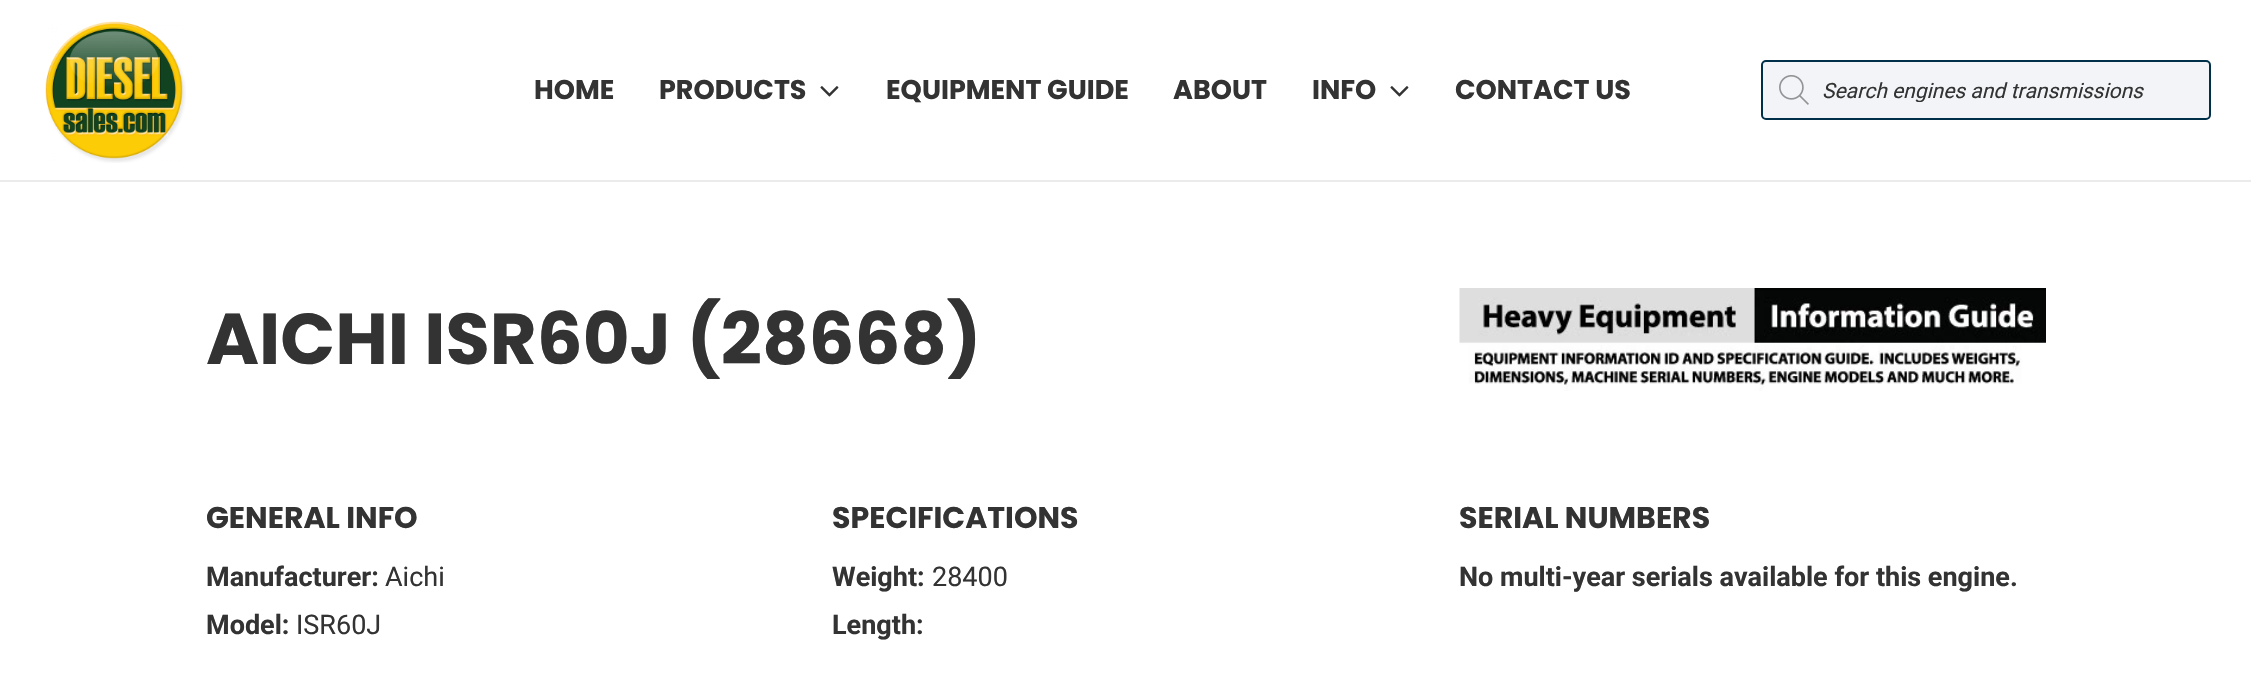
void draw(SkCanvas* canvas) {
    SkPaint paint;
    paint.setAntiAlias(true);
    canvas->clear(0xFFFFFFFF);
    paint.setColor(0xFFEBEBEB);
    canvas->drawPath(SkPathBuilder().moveTo(0, 180).lineTo(0, 182).lineTo(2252, 182).lineTo(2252, 2).lineTo(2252, 180).close().detach(), paint);
    canvas->drawImageRect(SkImages::DeferredFromEncodedData(SkData::MakeFromFileName("img1.png")), SkRect::MakeXYWH(45, 21, 141, 142), SkSamplingOptions());
    SkFont font1(fontMgr->matchFamilyStyle("Poppins", SkFontStyle::Bold()), 27);
    font1.setSubpixel(true);
    paint.setColor(0xFF333333);
    canvas->drawString("HOME", 534, 99, font1, paint);
    canvas->drawString("PRODUCTS", 659, 99, font1, paint);
    canvas->drawImageRect(SkImages::DeferredFromEncodedData(SkData::MakeFromFileName("img2.png")), SkRect::MakeXYWH(820, 86, 19, 11), SkSamplingOptions());
    canvas->drawString("EQUIPMENT GUIDE", 886, 99, font1, paint);
    canvas->drawString("ABOUT", 1173, 99, font1, paint);
    canvas->drawString("INFO", 1312, 99, font1, paint);
    canvas->drawImageRect(SkImages::DeferredFromEncodedData(SkData::MakeFromFileName("img2.png")), SkRect::MakeXYWH(1390, 86, 19, 11), SkSamplingOptions());
    canvas->drawString("CONTACT US", 1455, 99, font1, paint);
    paint.setColor(0xFFF2F4F7);
    canvas->drawRoundRect(SkRect::MakeXYWH(1762, 61, 448, 58), 4, 4, paint);
    paint.setStyle(SkPaint::kStroke_Style);
    paint.setStrokeWidth(2);
    paint.setColor(0xFF003049);
    canvas->drawRoundRect(SkRect::MakeXYWH(1762, 61, 448, 58), 4, 4, paint);
    canvas->drawImageRect(SkImages::DeferredFromEncodedData(SkData::MakeFromFileName("img3.png")), SkRect::MakeXYWH(1779, 75, 30, 30), SkSamplingOptions());
    canvas->save();
    canvas->clipRect(SkRect::MakeXYWH(1823, 78, 364, 24));
    SkFont font2(fontMgr->matchFamilyStyle("Roboto", SkFontStyle::Italic()), 21);
    font2.setSubpixel(true);
    paint.setStyle(SkPaint::kFill_Style);
    paint.setColor(0xFF333333);
    canvas->drawString("Search engines and transmissions", 1822, 98, font2, paint);
    canvas->restore();
    SkFont font3(fontMgr->matchFamilyStyle("Poppins", SkFontStyle::Bold()), 72);
    font3.setSubpixel(true);
    canvas->drawString("AICHI ISR60J (28668)", 206, 364, font3, paint);
    canvas->drawImageRect(SkImages::DeferredFromEncodedData(SkData::MakeFromFileName("img4.png")), SkRect::MakeXYWH(1459, 288, 587, 103), SkSamplingOptions());
    SkFont font4(fontMgr->matchFamilyStyle("Poppins", SkFontStyle::Bold()), 30);
    font4.setSubpixel(true);
    canvas->drawString("GENERAL INFO", 206, 528, font4, paint);
    SkFont font5(fontMgr->matchFamilyStyle("Roboto", SkFontStyle::Bold()), 27);
    font5.setSubpixel(true);
    canvas->drawString("Manufacturer:", 206, 586, font5, paint);
    SkFont font6(fontMgr->matchFamilyStyle("Roboto", SkFontStyle::Normal()), 27);
    font6.setSubpixel(true);
    canvas->drawString("Aichi", 385, 586, font6, paint);
    canvas->drawString("Model:", 206, 634, font5, paint);
    canvas->drawString("ISR60J", 296, 634, font6, paint);
    canvas->drawString("SPECIFICATIONS", 832, 528, font4, paint);
    canvas->drawString("Weight:", 832, 586, font5, paint);
    canvas->drawString("28400", 932, 586, font6, paint);
    canvas->drawString("Length:", 832, 634, font5, paint);
    canvas->drawString("SERIAL NUMBERS", 1459, 528, font4, paint);
    canvas->drawString("No multi-year serials available for this engine.", 1459, 586, font5, paint);
}
